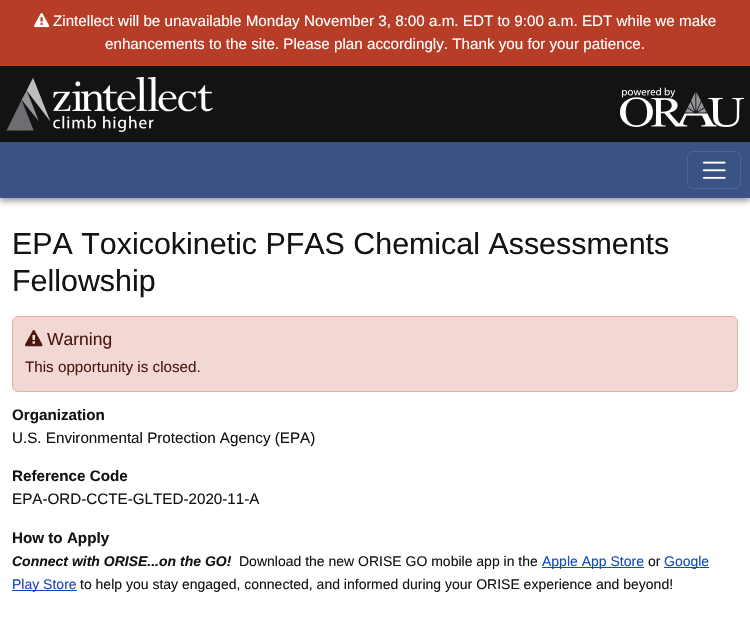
void draw(SkCanvas* canvas) {
    SkPaint paint;
    paint.setAntiAlias(true);
    canvas->clear(0xFFFFFFFF);
    paint.setColor(0x66000000);
    paint.setMaskFilter(SkMaskFilter::MakeBlur(kNormal_SkBlurStyle, 3));
    canvas->drawRect(SkRect::MakeXYWH(0, 3, 750, 198), paint);
    paint.setMaskFilter(nullptr);
    paint.setColor(0xFFB83D26);
    canvas->drawRect(SkRect::MakeXYWH(0, 0, 750, 66), paint);
    paint.setColor(0xFF000000);
    canvas->drawRect(SkRect::MakeXYWH(0, 66, 750, 1), paint);
    canvas->drawImageRect(SkImages::DeferredFromEncodedData(SkData::MakeFromFileName("img1.png")), SkRect::MakeXYWH(34, 13, 16, 15), SkSamplingOptions());
    SkFont font1(fontMgr->matchFamilyStyle("Liberation Sans", SkFontStyle::Normal()), 15.2f);
    font1.setSubpixel(true);
    paint.setColor(0xFFFFFFFF);
    canvas->drawString("Zintellect will be unavailable Monday November 3, 8:00 a.m. EDT to 9:00 a.m. EDT while we make", 53, 26, font1, paint);
    canvas->drawString("enhancements to the site. Please plan accordingly. Thank you for your patience.", 105, 49, font1, paint);
    paint.setColor(0xFF131313);
    canvas->drawRect(SkRect::MakeXYWH(0, 67, 750, 75), paint);
    canvas->drawImageRect(SkImages::DeferredFromEncodedData(SkData::MakeFromFileName("img2.png")), SkRect::MakeXYWH(6, 77, 207, 55), SkSamplingOptions());
    canvas->drawImageRect(SkImages::DeferredFromEncodedData(SkData::MakeFromFileName("img3.png")), SkRect::MakeXYWH(620, 87, 124, 40), SkSamplingOptions());
    paint.setColor(0xFF3B5384);
    canvas->drawRect(SkRect::MakeXYWH(0, 142, 750, 56), paint);
    paint.setStyle(SkPaint::kStroke_Style);
    paint.setStrokeWidth(1);
    paint.setColor(0xFF4F6490);
    canvas->drawRoundRect(SkRect::MakeXYWH(687.5f, 151.5f, 53, 37), 5.5f, 5.5f, paint);
    canvas->drawImageRect(SkImages::DeferredFromEncodedData(SkData::MakeFromFileName("img4.png")), SkRect::MakeXYWH(702, 161, 24, 18), SkSamplingOptions());
    SkFont font2(fontMgr->matchFamilyStyle("Liberation Sans", SkFontStyle::Normal()), 30.4f);
    font2.setSubpixel(true);
    paint.setStyle(SkPaint::kFill_Style);
    paint.setColor(0xFF131313);
    canvas->drawString("EPA Toxicokinetic PFAS Chemical Assessments", 12, 254, font2, paint);
    canvas->drawString("Fellowship", 12, 291, font2, paint);
    paint.setColor(0xFFF1D8D4);
    canvas->drawRoundRect(SkRect::MakeXYWH(12.5f, 316.5f, 725, 75), 5.5f, 5.5f, paint);
    paint.setStyle(SkPaint::kStroke_Style);
    paint.setColor(0xFFE3B1A8);
    canvas->drawRoundRect(SkRect::MakeXYWH(12.5f, 316.5f, 725, 75), 5.5f, 5.5f, paint);
    canvas->drawImageRect(SkImages::DeferredFromEncodedData(SkData::MakeFromFileName("img5.png")), SkRect::MakeXYWH(25, 330, 18, 17), SkSamplingOptions());
    SkFont font3(fontMgr->matchFamilyStyle("Liberation Sans", SkFontStyle::Normal()), 17.5f);
    font3.setSubpixel(true);
    paint.setStyle(SkPaint::kFill_Style);
    paint.setColor(0xFF4A180F);
    canvas->drawString("Warning", 47, 345, font3, paint);
    canvas->drawString("This opportunity is closed.", 25, 372, font1, paint);
    SkFont font4(fontMgr->matchFamilyStyle("Liberation Sans", SkFontStyle::Bold()), 15.2f);
    font4.setSubpixel(true);
    paint.setColor(0xFF131313);
    canvas->drawString("Organization", 12, 420, font4, paint);
    canvas->drawString("U.S. Environmental Protection Agency (EPA)", 12, 443, font1, paint);
    canvas->drawString("Reference Code", 12, 481, font4, paint);
    canvas->drawString("EPA-ORD-CCTE-GLTED-2020-11-A", 12, 504, font1, paint);
    canvas->drawString("How to Apply", 12, 543, font4, paint);
    SkFont font5(fontMgr->matchFamilyStyle("Liberation Sans", SkFontStyle::BoldItalic()), 14);
    font5.setSubpixel(true);
    canvas->drawString("Connect with ORISE...on the GO!", 12, 566, font5, paint);
    SkFont font6(fontMgr->matchFamilyStyle("Liberation Sans", SkFontStyle::Normal()), 14);
    font6.setSubpixel(true);
    canvas->drawString("Download the new ORISE GO mobile app in the", 239, 566, font6, paint);
    paint.setColor(0xFF0D4DB5);
    canvas->drawRect(SkRect::MakeXYWH(542, 567, 102, 1), paint);
    canvas->drawString("Apple App Store", 542, 566, font6, paint);
    paint.setColor(0xFF131313);
    canvas->drawString("or", 648, 566, font6, paint);
    paint.setColor(0xFF0D4DB5);
    canvas->drawRect(SkRect::MakeXYWH(664, 567, 45, 1), paint);
    canvas->drawString("Google", 664, 566, font6, paint);
    canvas->drawRect(SkRect::MakeXYWH(12, 590, 65, 1), paint);
    canvas->drawString("Play Store", 12, 589, font6, paint);
    paint.setColor(0xFF131313);
    canvas->drawString("to help you stay engaged, connected, and informed during your ORISE experience and beyond!", 80, 589, font6, paint);
}
